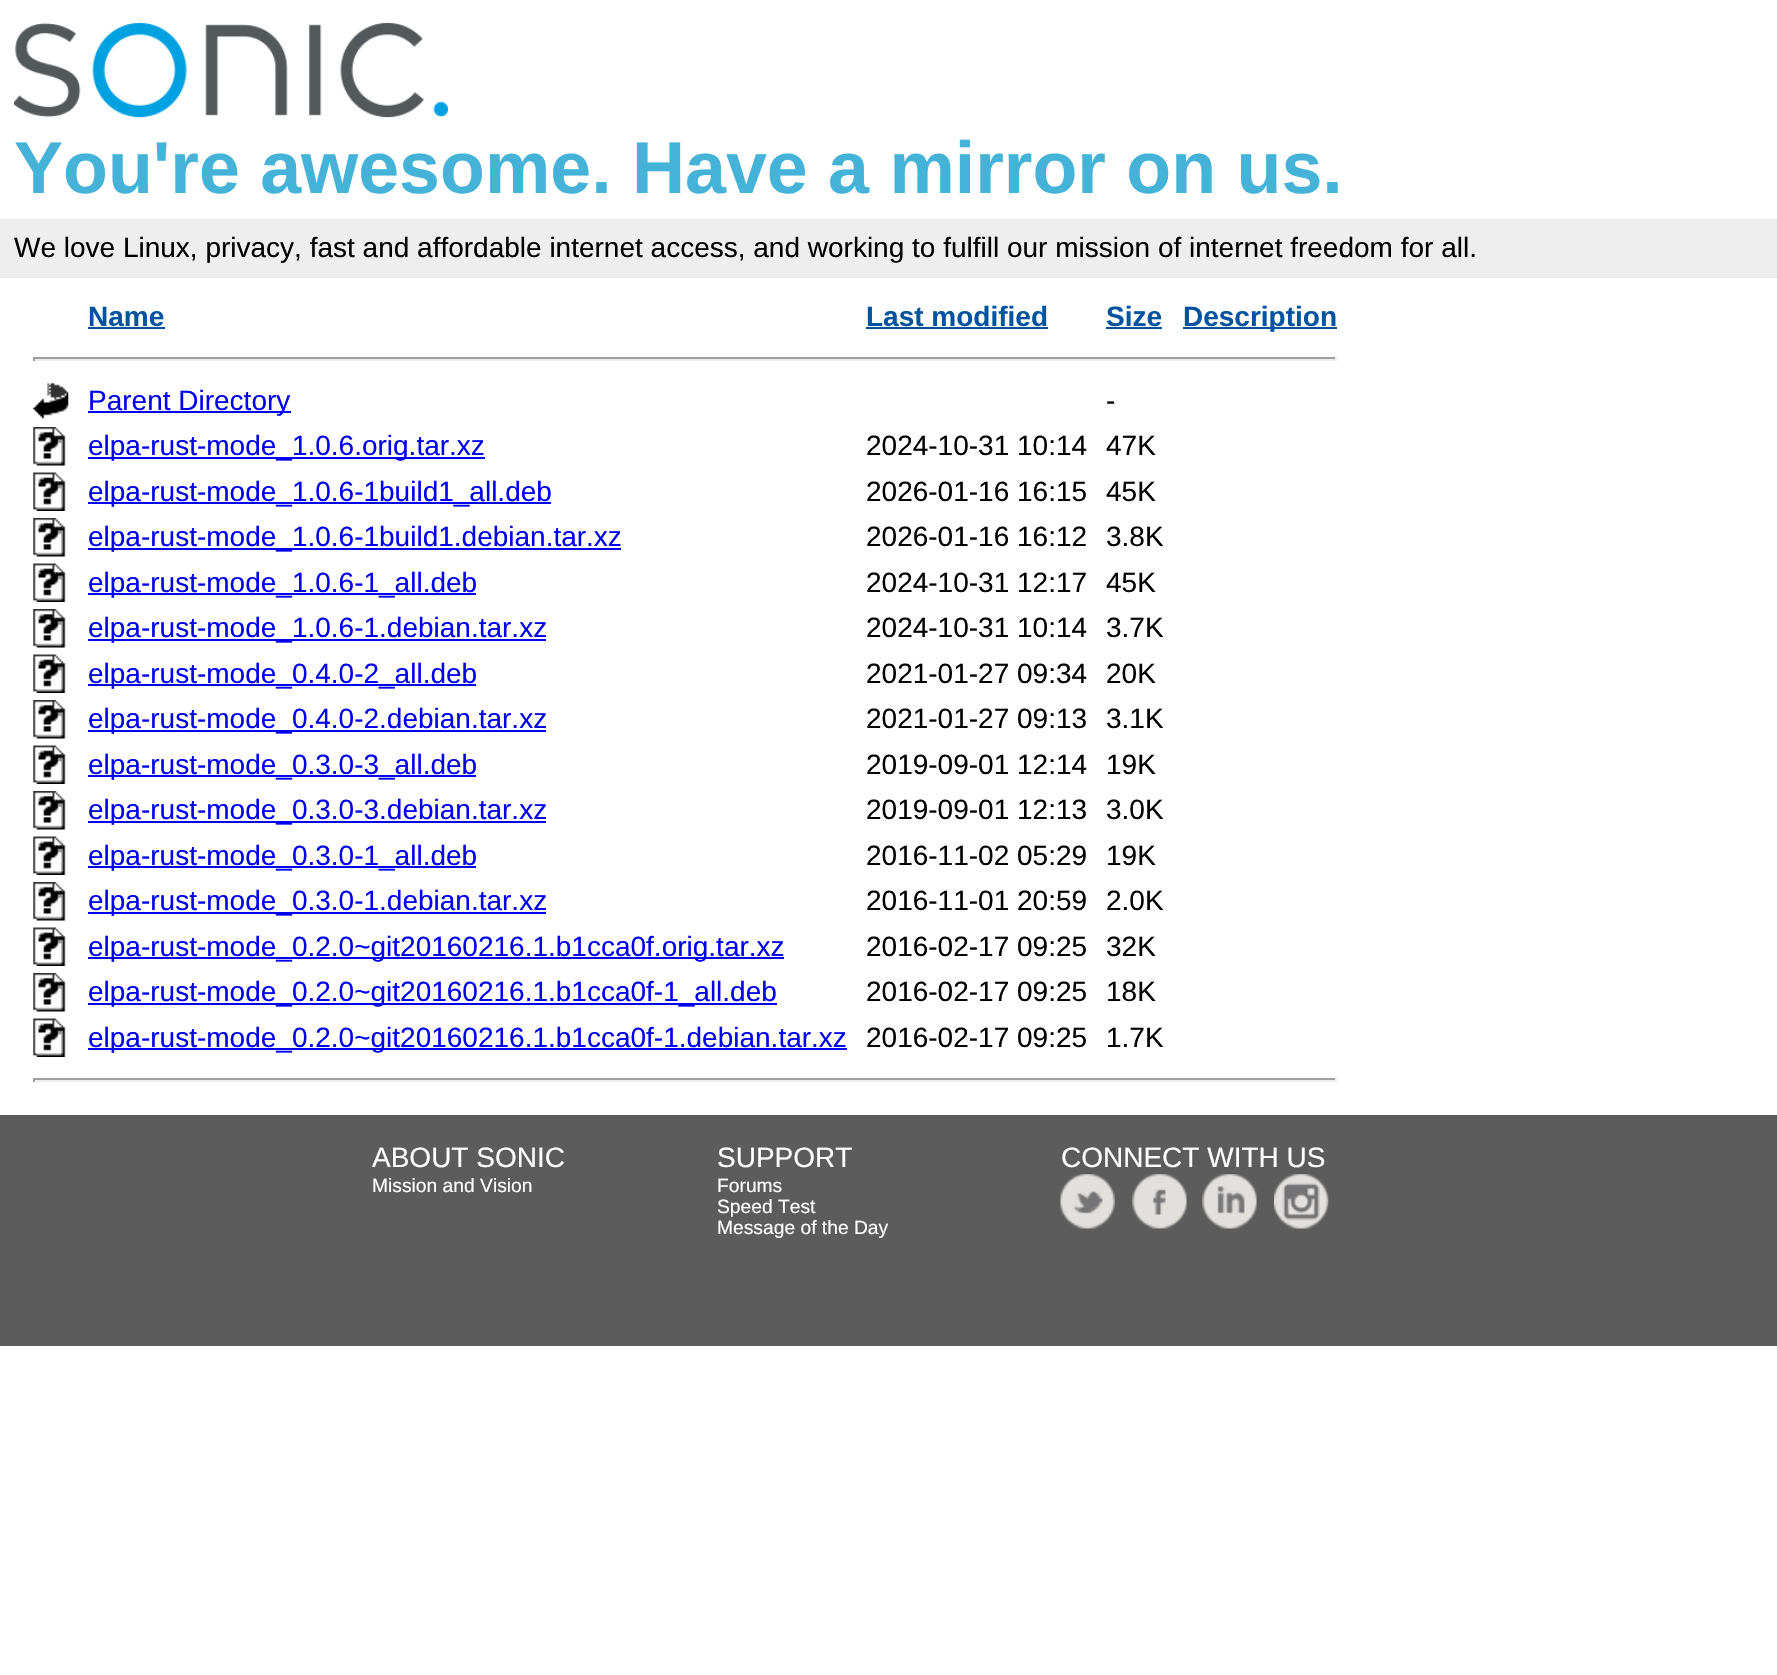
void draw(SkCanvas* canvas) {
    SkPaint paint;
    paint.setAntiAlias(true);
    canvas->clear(0xFFFFFFFF);
    canvas->drawImageRect(SkImages::DeferredFromEncodedData(SkData::MakeFromFileName("img1.png")), SkRect::MakeXYWH(14, 22, 434, 96), SkSamplingOptions());
    SkFont font1(fontMgr->matchFamilyStyle("Liberation Sans", SkFontStyle::Bold()), 73.5f);
    font1.setSubpixel(true);
    paint.setColor(0xFF45B3D8);
    canvas->drawString("You're awesome. Have a mirror on us.", 14, 193, font1, paint);
    paint.setColor(0xFFEEEEEE);
    canvas->drawRect(SkRect::MakeXYWH(0, 219, 1777, 59), paint);
    SkFont font2(fontMgr->matchFamilyStyle("Liberation Sans", SkFontStyle::Normal()), 28);
    font2.setSubpixel(true);
    paint.setColor(0xFF000000);
    canvas->drawString("We love Linux, privacy, fast and affordable internet access, and working to fulfill our mission of internet freedom for all.", 14, 257, font2, paint);
    SkFont font3(fontMgr->matchFamilyStyle("Liberation Sans", SkFontStyle::Bold()), 28);
    font3.setSubpixel(true);
    paint.setColor(0xFF00549F);
    canvas->drawString("Name", 88, 326, font3, paint);
    canvas->drawRect(SkRect::MakeXYWH(88, 327, 77, 2), paint);
    canvas->drawString("Last modified", 866, 326, font3, paint);
    canvas->drawRect(SkRect::MakeXYWH(866, 327, 182, 2), paint);
    canvas->drawString("Size", 1106, 326, font3, paint);
    canvas->drawRect(SkRect::MakeXYWH(1106, 327, 56, 2), paint);
    canvas->drawRect(SkRect::MakeXYWH(1183, 327, 154, 2), paint);
    canvas->drawString("Description", 1183, 326, font3, paint);
    paint.setColor(0xFF9F9F9F);
    canvas->drawRect(SkRect::MakeXYWH(33, 357, 1304, 2), paint);
    paint.setColor(0xFFEEEEEE);
    canvas->drawRect(SkRect::MakeXYWH(1335, 357, 2, 4), paint);
    canvas->drawRect(SkRect::MakeXYWH(33, 359, 1304, 2), paint);
    paint.setColor(0xFF9F9F9F);
    canvas->drawRect(SkRect::MakeXYWH(33, 357, 2, 4), paint);
    canvas->drawImageRect(SkImages::DeferredFromEncodedData(SkData::MakeFromFileName("img2.png")), SkRect::MakeXYWH(33, 382, 36, 37), SkSamplingOptions());
    paint.setColor(0xFF0000EE);
    canvas->drawRect(SkRect::MakeXYWH(88, 411, 203, 2), paint);
    canvas->drawString("Parent Directory", 88, 410, font2, paint);
    paint.setColor(0xFF000000);
    canvas->drawString("-", 1106, 410, font2, paint);
    canvas->drawImageRect(SkImages::DeferredFromEncodedData(SkData::MakeFromFileName("img3.png")), SkRect::MakeXYWH(33, 427, 33, 39), SkSamplingOptions());
    paint.setColor(0xFF0000EE);
    canvas->drawRect(SkRect::MakeXYWH(88, 457, 397, 2), paint);
    canvas->drawString("elpa-rust-mode_1.0.6.orig.tar.xz", 88, 455, font2, paint);
    paint.setColor(0xFF000000);
    canvas->drawString("2024-10-31 10:14", 866, 455, font2, paint);
    canvas->drawString("47K", 1106, 455, font2, paint);
    canvas->drawImageRect(SkImages::DeferredFromEncodedData(SkData::MakeFromFileName("img4.png")), SkRect::MakeXYWH(33, 472, 33, 39), SkSamplingOptions());
    paint.setColor(0xFF0000EE);
    canvas->drawRect(SkRect::MakeXYWH(88, 502, 463, 2), paint);
    canvas->drawString("elpa-rust-mode_1.0.6-1build1_all.deb", 88, 501, font2, paint);
    paint.setColor(0xFF000000);
    canvas->drawString("2026-01-16 16:15", 866, 501, font2, paint);
    canvas->drawString("45K", 1106, 501, font2, paint);
    canvas->drawImageRect(SkImages::DeferredFromEncodedData(SkData::MakeFromFileName("img3.png")), SkRect::MakeXYWH(33, 518, 33, 39), SkSamplingOptions());
    paint.setColor(0xFF0000EE);
    canvas->drawRect(SkRect::MakeXYWH(88, 548, 533, 2), paint);
    canvas->drawString("elpa-rust-mode_1.0.6-1build1.debian.tar.xz", 88, 546, font2, paint);
    paint.setColor(0xFF000000);
    canvas->drawString("2026-01-16 16:12", 866, 546, font2, paint);
    canvas->drawString("3.8K", 1106, 546, font2, paint);
    canvas->drawImageRect(SkImages::DeferredFromEncodedData(SkData::MakeFromFileName("img4.png")), SkRect::MakeXYWH(33, 563, 33, 39), SkSamplingOptions());
    paint.setColor(0xFF0000EE);
    canvas->drawRect(SkRect::MakeXYWH(88, 593, 388, 2), paint);
    canvas->drawString("elpa-rust-mode_1.0.6-1_all.deb", 88, 592, font2, paint);
    paint.setColor(0xFF000000);
    canvas->drawString("2024-10-31 12:17", 866, 592, font2, paint);
    canvas->drawString("45K", 1106, 592, font2, paint);
    canvas->drawImageRect(SkImages::DeferredFromEncodedData(SkData::MakeFromFileName("img3.png")), SkRect::MakeXYWH(33, 609, 33, 39), SkSamplingOptions());
    paint.setColor(0xFF0000EE);
    canvas->drawRect(SkRect::MakeXYWH(88, 639, 458, 2), paint);
    canvas->drawString("elpa-rust-mode_1.0.6-1.debian.tar.xz", 88, 637, font2, paint);
    paint.setColor(0xFF000000);
    canvas->drawString("2024-10-31 10:14", 866, 637, font2, paint);
    canvas->drawString("3.7K", 1106, 637, font2, paint);
    canvas->drawImageRect(SkImages::DeferredFromEncodedData(SkData::MakeFromFileName("img4.png")), SkRect::MakeXYWH(33, 654, 33, 39), SkSamplingOptions());
    paint.setColor(0xFF0000EE);
    canvas->drawRect(SkRect::MakeXYWH(88, 684, 388, 2), paint);
    canvas->drawString("elpa-rust-mode_0.4.0-2_all.deb", 88, 683, font2, paint);
    paint.setColor(0xFF000000);
    canvas->drawString("2021-01-27 09:34", 866, 683, font2, paint);
    canvas->drawString("20K", 1106, 683, font2, paint);
    canvas->drawImageRect(SkImages::DeferredFromEncodedData(SkData::MakeFromFileName("img3.png")), SkRect::MakeXYWH(33, 700, 33, 39), SkSamplingOptions());
    paint.setColor(0xFF0000EE);
    canvas->drawRect(SkRect::MakeXYWH(88, 730, 458, 2), paint);
    canvas->drawString("elpa-rust-mode_0.4.0-2.debian.tar.xz", 88, 728, font2, paint);
    paint.setColor(0xFF000000);
    canvas->drawString("2021-01-27 09:13", 866, 728, font2, paint);
    canvas->drawString("3.1K", 1106, 728, font2, paint);
    canvas->drawImageRect(SkImages::DeferredFromEncodedData(SkData::MakeFromFileName("img4.png")), SkRect::MakeXYWH(33, 745, 33, 39), SkSamplingOptions());
    paint.setColor(0xFF0000EE);
    canvas->drawRect(SkRect::MakeXYWH(88, 775, 388, 2), paint);
    canvas->drawString("elpa-rust-mode_0.3.0-3_all.deb", 88, 774, font2, paint);
    paint.setColor(0xFF000000);
    canvas->drawString("2019-09-01 12:14", 866, 774, font2, paint);
    canvas->drawString("19K", 1106, 774, font2, paint);
    canvas->drawImageRect(SkImages::DeferredFromEncodedData(SkData::MakeFromFileName("img3.png")), SkRect::MakeXYWH(33, 791, 33, 39), SkSamplingOptions());
    paint.setColor(0xFF0000EE);
    canvas->drawRect(SkRect::MakeXYWH(88, 821, 458, 2), paint);
    canvas->drawString("elpa-rust-mode_0.3.0-3.debian.tar.xz", 88, 819, font2, paint);
    paint.setColor(0xFF000000);
    canvas->drawString("2019-09-01 12:13", 866, 819, font2, paint);
    canvas->drawString("3.0K", 1106, 819, font2, paint);
    canvas->drawImageRect(SkImages::DeferredFromEncodedData(SkData::MakeFromFileName("img4.png")), SkRect::MakeXYWH(33, 836, 33, 39), SkSamplingOptions());
    paint.setColor(0xFF0000EE);
    canvas->drawRect(SkRect::MakeXYWH(88, 866, 388, 2), paint);
    canvas->drawString("elpa-rust-mode_0.3.0-1_all.deb", 88, 865, font2, paint);
    paint.setColor(0xFF000000);
    canvas->drawString("2016-11-02 05:29", 866, 865, font2, paint);
    canvas->drawString("19K", 1106, 865, font2, paint);
    canvas->drawImageRect(SkImages::DeferredFromEncodedData(SkData::MakeFromFileName("img3.png")), SkRect::MakeXYWH(33, 882, 33, 39), SkSamplingOptions());
    paint.setColor(0xFF0000EE);
    canvas->drawRect(SkRect::MakeXYWH(88, 912, 458, 2), paint);
    canvas->drawString("elpa-rust-mode_0.3.0-1.debian.tar.xz", 88, 910, font2, paint);
    paint.setColor(0xFF000000);
    canvas->drawString("2016-11-01 20:59", 866, 910, font2, paint);
    canvas->drawString("2.0K", 1106, 910, font2, paint);
    canvas->drawImageRect(SkImages::DeferredFromEncodedData(SkData::MakeFromFileName("img4.png")), SkRect::MakeXYWH(33, 927, 33, 39), SkSamplingOptions());
    paint.setColor(0xFF0000EE);
    canvas->drawRect(SkRect::MakeXYWH(88, 957, 696, 2), paint);
    canvas->drawString("elpa-rust-mode_0.2.0~git20160216.1.b1cca0f.orig.tar.xz", 88, 956, font2, paint);
    paint.setColor(0xFF000000);
    canvas->drawString("2016-02-17 09:25", 866, 956, font2, paint);
    canvas->drawString("32K", 1106, 956, font2, paint);
    canvas->drawImageRect(SkImages::DeferredFromEncodedData(SkData::MakeFromFileName("img3.png")), SkRect::MakeXYWH(33, 973, 33, 39), SkSamplingOptions());
    paint.setColor(0xFF0000EE);
    canvas->drawRect(SkRect::MakeXYWH(88, 1003, 689, 2), paint);
    canvas->drawString("elpa-rust-mode_0.2.0~git20160216.1.b1cca0f-1_all.deb", 88, 1001, font2, paint);
    paint.setColor(0xFF000000);
    canvas->drawString("2016-02-17 09:25", 866, 1001, font2, paint);
    canvas->drawString("18K", 1106, 1001, font2, paint);
    canvas->drawImageRect(SkImages::DeferredFromEncodedData(SkData::MakeFromFileName("img4.png")), SkRect::MakeXYWH(33, 1018, 33, 39), SkSamplingOptions());
    paint.setColor(0xFF0000EE);
    canvas->drawRect(SkRect::MakeXYWH(88, 1048, 759, 2), paint);
    canvas->drawString("elpa-rust-mode_0.2.0~git20160216.1.b1cca0f-1.debian.tar.xz", 88, 1047, font2, paint);
    paint.setColor(0xFF000000);
    canvas->drawString("2016-02-17 09:25", 866, 1047, font2, paint);
    canvas->drawString("1.7K", 1106, 1047, font2, paint);
    paint.setColor(0xFF9F9F9F);
    canvas->drawRect(SkRect::MakeXYWH(33, 1078, 1304, 2), paint);
    paint.setColor(0xFFEEEEEE);
    canvas->drawRect(SkRect::MakeXYWH(1335, 1078, 2, 4), paint);
    canvas->drawRect(SkRect::MakeXYWH(33, 1080, 1304, 2), paint);
    paint.setColor(0xFF9F9F9F);
    canvas->drawRect(SkRect::MakeXYWH(33, 1078, 2, 4), paint);
    paint.setColor(0xFF5C5C5C);
    canvas->drawRect(SkRect::MakeXYWH(0, 1115, 1777, 231), paint);
    paint.setColor(0xFFFFFFFF);
    canvas->drawString("ABOUT SONIC", 372, 1167, font2, paint);
    SkFont font4(fontMgr->matchFamilyStyle("Liberation Sans", SkFontStyle::Normal()), 19.25f);
    font4.setSubpixel(true);
    canvas->drawString("Mission and Vision", 372, 1192, font4, paint);
    canvas->drawString("SUPPORT", 717, 1167, font2, paint);
    canvas->drawString("Forums", 717, 1192, font4, paint);
    canvas->drawString("Speed Test", 717, 1213, font4, paint);
    canvas->drawString("Message of the Day", 717, 1234, font4, paint);
    canvas->drawString("CONNECT WITH US", 1061, 1167, font2, paint);
    canvas->drawImageRect(SkImages::DeferredFromEncodedData(SkData::MakeFromFileName("img5.png")), SkRect::MakeXYWH(1060, 1174, 55, 55), SkSamplingOptions());
    canvas->drawImageRect(SkImages::DeferredFromEncodedData(SkData::MakeFromFileName("img6.png")), SkRect::MakeXYWH(1132, 1174, 55, 55), SkSamplingOptions());
    canvas->drawImageRect(SkImages::DeferredFromEncodedData(SkData::MakeFromFileName("img7.png")), SkRect::MakeXYWH(1202, 1174, 55, 55), SkSamplingOptions());
    canvas->drawImageRect(SkImages::DeferredFromEncodedData(SkData::MakeFromFileName("img8.png")), SkRect::MakeXYWH(1274, 1174, 55, 55), SkSamplingOptions());
}
